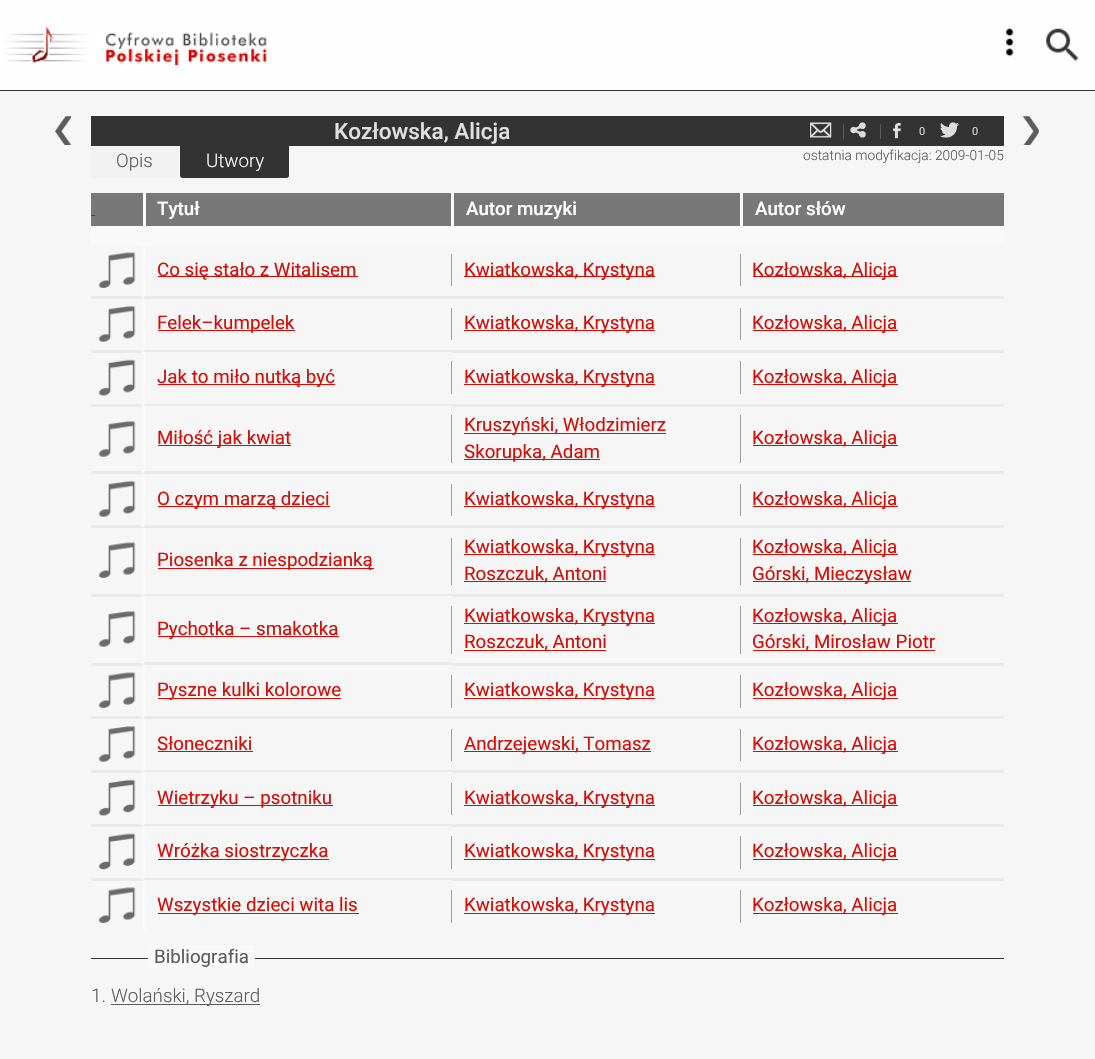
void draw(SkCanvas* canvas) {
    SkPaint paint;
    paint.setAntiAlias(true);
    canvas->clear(0xFFF6F6F6);
    paint.setColor(0xFFFEFEFE);
    canvas->drawRect(SkRect::MakeXYWH(0, 0, 1095, 90), paint);
    paint.setColor(0xFF333333);
    canvas->drawRect(SkRect::MakeXYWH(0, 90, 1095, 1), paint);
    canvas->drawImageRect(SkImages::DeferredFromEncodedData(SkData::MakeFromFileName("img1.png")), SkRect::MakeXYWH(4, 27, 263, 38), SkSamplingOptions());
    canvas->drawImageRect(SkImages::DeferredFromEncodedData(SkData::MakeFromFileName("img2.png")), SkRect::MakeXYWH(1006, 28, 8, 29), SkSamplingOptions());
    canvas->drawImageRect(SkImages::DeferredFromEncodedData(SkData::MakeFromFileName("img3.png")), SkRect::MakeXYWH(1046, 28, 33, 34), SkSamplingOptions());
    canvas->drawRect(SkRect::MakeXYWH(91, 116, 913, 30), paint);
    canvas->drawImageRect(SkImages::DeferredFromEncodedData(SkData::MakeFromFileName("img4.png")), SkRect::MakeXYWH(55, 116, 17, 29), SkSamplingOptions());
    SkFont font1(fontMgr->matchFamilyStyle("Roboto", SkFontStyle(500, SkFontStyle::kNormal_Width, SkFontStyle::kUpright_Slant)), 22.5f);
    font1.setSubpixel(true);
    paint.setColor(0xFFE0E0E0);
    canvas->drawString("Kozłowska, Alicja", 334, 139, font1, paint);
    canvas->drawImageRect(SkImages::DeferredFromEncodedData(SkData::MakeFromFileName("img5.png")), SkRect::MakeXYWH(810, 122, 22, 16), SkSamplingOptions());
    canvas->drawImageRect(SkImages::DeferredFromEncodedData(SkData::MakeFromFileName("img6.png")), SkRect::MakeXYWH(850, 122, 16, 16), SkSamplingOptions());
    paint.setColor(0xFF5C5C5C);
    canvas->drawRect(SkRect::MakeXYWH(843, 124, 1, 15), paint);
    canvas->drawImageRect(SkImages::DeferredFromEncodedData(SkData::MakeFromFileName("img7.png")), SkRect::MakeXYWH(893, 122, 8, 17), SkSamplingOptions());
    canvas->drawRect(SkRect::MakeXYWH(880, 124, 1, 15), paint);
    SkFont font2(fontMgr->matchFamilyStyle("Roboto", SkFontStyle::Normal()), 11);
    font2.setSubpixel(true);
    paint.setColor(0xFFD5D5D5);
    canvas->drawString("0", 919, 135, font2, paint);
    canvas->drawImageRect(SkImages::DeferredFromEncodedData(SkData::MakeFromFileName("img8.png")), SkRect::MakeXYWH(940, 122, 19, 16), SkSamplingOptions());
    canvas->drawString("0", 972, 135, font2, paint);
    canvas->drawImageRect(SkImages::DeferredFromEncodedData(SkData::MakeFromFileName("img9.png")), SkRect::MakeXYWH(1023, 116, 16, 29), SkSamplingOptions());
    paint.setColor(0xFFF2F2F2);
    canvas->drawPath(SkPathBuilder().moveTo(91, 146).lineTo(178, 146).lineTo(178, 175.5f).cubicTo(178, 177, 177, 178, 175.5f, 178).lineTo(93.5f, 178).cubicTo(92, 178, 91, 177, 91, 175.5f).close().detach(), paint);
    SkFont font3(fontMgr->matchFamilyStyle("Roboto", SkFontStyle(300, SkFontStyle::kNormal_Width, SkFontStyle::kUpright_Slant)), 18.75f);
    font3.setSubpixel(true);
    paint.setColor(0xFF5C5C5C);
    canvas->drawString("Opis", 116, 167, font3, paint);
    paint.setColor(0xFF333333);
    canvas->drawPath(SkPathBuilder().moveTo(180, 146).lineTo(289, 146).lineTo(289, 175.5f).cubicTo(289, 177, 288, 178, 286.5f, 178).lineTo(182.5f, 178).cubicTo(181, 178, 180, 177, 180, 175.5f).close().detach(), paint);
    paint.setColor(0xFFF9F9F9);
    canvas->drawString("Utwory", 206, 167, font3, paint);
    SkFont font4(fontMgr->matchFamilyStyle("Roboto", SkFontStyle(300, SkFontStyle::kNormal_Width, SkFontStyle::kUpright_Slant)), 13.75f);
    font4.setSubpixel(true);
    paint.setColor(0xFF5C5C5C);
    canvas->drawString("ostatnia modyfikacja: 2009-01-05", 803, 160, font4, paint);
    paint.setColor(0xFF787878);
    canvas->drawRect(SkRect::MakeXYWH(91, 193, 52, 33), paint);
    paint.setColor(0xFFF9F9F9);
    canvas->drawRect(SkRect::MakeXYWH(91, 226, 52, 19), paint);
    paint.setColor(0xFFD60D06);
    canvas->drawRect(SkRect::MakeXYWH(91, 215, 4, 1), paint);
    paint.setColor(0xFF787878);
    canvas->drawRect(SkRect::MakeXYWH(146, 193, 305, 33), paint);
    paint.setColor(0xFFF9F9F9);
    canvas->drawRect(SkRect::MakeXYWH(146, 226, 305, 19), paint);
    canvas->drawRect(SkRect::MakeXYWH(143, 193, 3, 52), paint);
    SkFont font5(fontMgr->matchFamilyStyle("Roboto", SkFontStyle(500, SkFontStyle::kNormal_Width, SkFontStyle::kUpright_Slant)), 18.75f);
    font5.setSubpixel(true);
    paint.setColor(0xFFFFFFFF);
    canvas->drawString("Tytuł", 157, 215, font5, paint);
    paint.setColor(0xFF787878);
    canvas->drawRect(SkRect::MakeXYWH(454, 193, 286, 33), paint);
    paint.setColor(0xFFF9F9F9);
    canvas->drawRect(SkRect::MakeXYWH(454, 226, 286, 19), paint);
    canvas->drawRect(SkRect::MakeXYWH(451, 193, 3, 52), paint);
    paint.setColor(0xFFFFFFFF);
    canvas->drawString("Autor muzyki", 466, 215, font5, paint);
    paint.setColor(0xFF787878);
    canvas->drawRect(SkRect::MakeXYWH(743, 193, 261, 33), paint);
    paint.setColor(0xFFF9F9F9);
    canvas->drawRect(SkRect::MakeXYWH(743, 226, 261, 19), paint);
    canvas->drawRect(SkRect::MakeXYWH(740, 193, 3, 52), paint);
    paint.setColor(0xFFFFFFFF);
    canvas->drawString("Autor słów", 755, 215, font5, paint);
    paint.setColor(0xFFEAEAEA);
    canvas->drawRect(SkRect::MakeXYWH(91, 296, 52, 3), paint);
    canvas->drawImageRect(SkImages::DeferredFromEncodedData(SkData::MakeFromFileName("img10.png")), SkRect::MakeXYWH(98, 252, 38, 36), SkSamplingOptions());
    canvas->drawPath(SkPathBuilder().moveTo(451, 299).lineTo(142, 299).lineTo(145, 296).lineTo(451, 296).close().detach(), paint);
    paint.setColor(0xFFF9F9F9);
    canvas->drawPath(SkPathBuilder().moveTo(142, 299).lineTo(142, 245).lineTo(145, 245).lineTo(145, 296).close().detach(), paint);
    paint.setColor(0xFFD60D06);
    canvas->drawRect(SkRect::MakeXYWH(158, 276, 200, 1), paint);
    SkFont font6(fontMgr->matchFamilyStyle("Roboto", SkFontStyle::Normal()), 18.75f);
    font6.setSubpixel(true);
    canvas->drawString("Co się stało z Witalisem", 157, 276, font6, paint);
    paint.setColor(0xFFEAEAEA);
    canvas->drawRect(SkRect::MakeXYWH(451, 296, 553, 3), paint);
    paint.setColor(0xFF9F9F9F);
    canvas->drawRect(SkRect::MakeXYWH(451, 254, 1, 32), paint);
    paint.setColor(0xFFD60D06);
    canvas->drawRect(SkRect::MakeXYWH(464, 276, 191, 1), paint);
    canvas->drawString("Kwiatkowska, Krystyna", 464, 276, font6, paint);
    paint.setColor(0xFF9F9F9F);
    canvas->drawRect(SkRect::MakeXYWH(740, 254, 1, 32), paint);
    paint.setColor(0xFFD60D06);
    canvas->drawRect(SkRect::MakeXYWH(753, 276, 145, 1), paint);
    canvas->drawString("Kozłowska, Alicja", 752, 276, font6, paint);
    paint.setColor(0xFFEAEAEA);
    canvas->drawRect(SkRect::MakeXYWH(91, 350, 52, 3), paint);
    canvas->drawImageRect(SkImages::DeferredFromEncodedData(SkData::MakeFromFileName("img11.png")), SkRect::MakeXYWH(98, 306, 38, 36), SkSamplingOptions());
    canvas->drawPath(SkPathBuilder().moveTo(451, 352).lineTo(142, 352).lineTo(145, 350).lineTo(451, 350).close().detach(), paint);
    paint.setColor(0xFFF9F9F9);
    canvas->drawPath(SkPathBuilder().moveTo(142, 352).lineTo(142, 299).lineTo(145, 299).lineTo(145, 350).close().detach(), paint);
    paint.setColor(0xFFD60D06);
    canvas->drawRect(SkRect::MakeXYWH(158, 330, 137, 1), paint);
    canvas->drawString("Felek–kumpelek", 157, 329, font6, paint);
    paint.setColor(0xFFEAEAEA);
    canvas->drawRect(SkRect::MakeXYWH(451, 350, 553, 3), paint);
    paint.setColor(0xFF9F9F9F);
    canvas->drawRect(SkRect::MakeXYWH(451, 308, 1, 32), paint);
    paint.setColor(0xFFD60D06);
    canvas->drawRect(SkRect::MakeXYWH(464, 330, 191, 1), paint);
    canvas->drawString("Kwiatkowska, Krystyna", 464, 329, font6, paint);
    paint.setColor(0xFF9F9F9F);
    canvas->drawRect(SkRect::MakeXYWH(740, 308, 1, 32), paint);
    paint.setColor(0xFFD60D06);
    canvas->drawRect(SkRect::MakeXYWH(753, 330, 145, 1), paint);
    canvas->drawString("Kozłowska, Alicja", 752, 329, font6, paint);
    paint.setColor(0xFFEAEAEA);
    canvas->drawRect(SkRect::MakeXYWH(91, 404, 52, 3), paint);
    canvas->drawImageRect(SkImages::DeferredFromEncodedData(SkData::MakeFromFileName("img12.png")), SkRect::MakeXYWH(98, 359, 38, 37), SkSamplingOptions());
    canvas->drawPath(SkPathBuilder().moveTo(451, 406).lineTo(142, 406).lineTo(145, 404).lineTo(451, 404).close().detach(), paint);
    paint.setColor(0xFFF9F9F9);
    canvas->drawPath(SkPathBuilder().moveTo(142, 406).lineTo(142, 352).lineTo(145, 352).lineTo(145, 404).close().detach(), paint);
    paint.setColor(0xFFD60D06);
    canvas->drawRect(SkRect::MakeXYWH(158, 384, 177, 1), paint);
    canvas->drawString("Jak to miło nutką być", 157, 383, font6, paint);
    paint.setColor(0xFFEAEAEA);
    canvas->drawRect(SkRect::MakeXYWH(451, 404, 553, 3), paint);
    paint.setColor(0xFF9F9F9F);
    canvas->drawRect(SkRect::MakeXYWH(451, 361, 1, 33), paint);
    paint.setColor(0xFFD60D06);
    canvas->drawRect(SkRect::MakeXYWH(464, 384, 191, 1), paint);
    canvas->drawString("Kwiatkowska, Krystyna", 464, 383, font6, paint);
    paint.setColor(0xFF9F9F9F);
    canvas->drawRect(SkRect::MakeXYWH(740, 361, 1, 33), paint);
    paint.setColor(0xFFD60D06);
    canvas->drawRect(SkRect::MakeXYWH(753, 384, 145, 1), paint);
    canvas->drawString("Kozłowska, Alicja", 752, 383, font6, paint);
    paint.setColor(0xFFEAEAEA);
    canvas->drawRect(SkRect::MakeXYWH(91, 471, 52, 3), paint);
    canvas->drawImageRect(SkImages::DeferredFromEncodedData(SkData::MakeFromFileName("img11.png")), SkRect::MakeXYWH(98, 421, 38, 36), SkSamplingOptions());
    canvas->drawPath(SkPathBuilder().moveTo(451, 474).lineTo(142, 474).lineTo(145, 471).lineTo(451, 471).close().detach(), paint);
    paint.setColor(0xFFF9F9F9);
    canvas->drawPath(SkPathBuilder().moveTo(142, 474).lineTo(142, 406).lineTo(145, 406).lineTo(145, 471).close().detach(), paint);
    paint.setColor(0xFFD60D06);
    canvas->drawRect(SkRect::MakeXYWH(158, 445, 133, 1), paint);
    canvas->drawString("Miłość jak kwiat", 157, 444, font6, paint);
    paint.setColor(0xFFEAEAEA);
    canvas->drawRect(SkRect::MakeXYWH(451, 471, 553, 3), paint);
    paint.setColor(0xFF9F9F9F);
    canvas->drawRect(SkRect::MakeXYWH(451, 415, 1, 48), paint);
    paint.setColor(0xFFD60D06);
    canvas->drawRect(SkRect::MakeXYWH(464, 433, 202, 1), paint);
    canvas->drawString("Kruszyński, Włodzimierz", 464, 431, font6, paint);
    canvas->drawRect(SkRect::MakeXYWH(464, 459, 136, 1), paint);
    canvas->drawString("Skorupka, Adam", 464, 458, font6, paint);
    paint.setColor(0xFF9F9F9F);
    canvas->drawRect(SkRect::MakeXYWH(740, 415, 1, 48), paint);
    paint.setColor(0xFFD60D06);
    canvas->drawRect(SkRect::MakeXYWH(753, 445, 145, 1), paint);
    canvas->drawString("Kozłowska, Alicja", 752, 444, font6, paint);
    paint.setColor(0xFFEAEAEA);
    canvas->drawRect(SkRect::MakeXYWH(91, 525, 52, 3), paint);
    canvas->drawImageRect(SkImages::DeferredFromEncodedData(SkData::MakeFromFileName("img11.png")), SkRect::MakeXYWH(98, 481, 38, 36), SkSamplingOptions());
    canvas->drawPath(SkPathBuilder().moveTo(451, 528).lineTo(142, 528).lineTo(145, 525).lineTo(451, 525).close().detach(), paint);
    paint.setColor(0xFFF9F9F9);
    canvas->drawPath(SkPathBuilder().moveTo(142, 528).lineTo(142, 474).lineTo(145, 474).lineTo(145, 525).close().detach(), paint);
    paint.setColor(0xFFD60D06);
    canvas->drawRect(SkRect::MakeXYWH(158, 506, 172, 1), paint);
    canvas->drawString("O czym marzą dzieci", 157, 505, font6, paint);
    paint.setColor(0xFFEAEAEA);
    canvas->drawRect(SkRect::MakeXYWH(451, 525, 553, 3), paint);
    paint.setColor(0xFF9F9F9F);
    canvas->drawRect(SkRect::MakeXYWH(451, 484, 1, 32), paint);
    paint.setColor(0xFFD60D06);
    canvas->drawRect(SkRect::MakeXYWH(464, 506, 191, 1), paint);
    canvas->drawString("Kwiatkowska, Krystyna", 464, 505, font6, paint);
    paint.setColor(0xFF9F9F9F);
    canvas->drawRect(SkRect::MakeXYWH(740, 484, 1, 32), paint);
    paint.setColor(0xFFD60D06);
    canvas->drawRect(SkRect::MakeXYWH(753, 506, 145, 1), paint);
    canvas->drawString("Kozłowska, Alicja", 752, 505, font6, paint);
    paint.setColor(0xFFEAEAEA);
    canvas->drawRect(SkRect::MakeXYWH(91, 594, 52, 3), paint);
    canvas->drawImageRect(SkImages::DeferredFromEncodedData(SkData::MakeFromFileName("img10.png")), SkRect::MakeXYWH(98, 542, 38, 36), SkSamplingOptions());
    canvas->drawPath(SkPathBuilder().moveTo(451, 596).lineTo(142, 596).lineTo(145, 594).lineTo(451, 594).close().detach(), paint);
    paint.setColor(0xFFF9F9F9);
    canvas->drawPath(SkPathBuilder().moveTo(142, 596).lineTo(142, 528).lineTo(145, 528).lineTo(145, 594).close().detach(), paint);
    paint.setColor(0xFFD60D06);
    canvas->drawRect(SkRect::MakeXYWH(158, 568, 216, 1), paint);
    canvas->drawString("Piosenka z niespodzianką", 157, 566, font6, paint);
    paint.setColor(0xFFEAEAEA);
    canvas->drawRect(SkRect::MakeXYWH(451, 594, 553, 3), paint);
    paint.setColor(0xFF9F9F9F);
    canvas->drawRect(SkRect::MakeXYWH(451, 538, 1, 47), paint);
    paint.setColor(0xFFD60D06);
    canvas->drawRect(SkRect::MakeXYWH(464, 554, 191, 1), paint);
    canvas->drawString("Kwiatkowska, Krystyna", 464, 553, font6, paint);
    canvas->drawRect(SkRect::MakeXYWH(464, 581, 142, 1), paint);
    canvas->drawString("Roszczuk, Antoni", 464, 580, font6, paint);
    paint.setColor(0xFF9F9F9F);
    canvas->drawRect(SkRect::MakeXYWH(740, 538, 1, 47), paint);
    paint.setColor(0xFFD60D06);
    canvas->drawRect(SkRect::MakeXYWH(753, 554, 145, 1), paint);
    canvas->drawString("Kozłowska, Alicja", 752, 553, font6, paint);
    canvas->drawRect(SkRect::MakeXYWH(753, 581, 158, 1), paint);
    canvas->drawString("Górski, Mieczysław", 752, 580, font6, paint);
    paint.setColor(0xFFEAEAEA);
    canvas->drawRect(SkRect::MakeXYWH(91, 663, 52, 3), paint);
    canvas->drawImageRect(SkImages::DeferredFromEncodedData(SkData::MakeFromFileName("img11.png")), SkRect::MakeXYWH(98, 611, 38, 36), SkSamplingOptions());
    canvas->drawPath(SkPathBuilder().moveTo(451, 665).lineTo(142, 665).lineTo(145, 662).lineTo(451, 662).close().detach(), paint);
    paint.setColor(0xFFF9F9F9);
    canvas->drawPath(SkPathBuilder().moveTo(142, 665).lineTo(142, 596).lineTo(145, 596).lineTo(145, 662).close().detach(), paint);
    paint.setColor(0xFFD60D06);
    canvas->drawRect(SkRect::MakeXYWH(158, 636, 181, 1), paint);
    canvas->drawString("Pychotka – smakotka", 157, 635, font6, paint);
    paint.setColor(0xFFEAEAEA);
    canvas->drawRect(SkRect::MakeXYWH(451, 663, 553, 3), paint);
    paint.setColor(0xFF9F9F9F);
    canvas->drawRect(SkRect::MakeXYWH(451, 606, 1, 48), paint);
    paint.setColor(0xFFD60D06);
    canvas->drawRect(SkRect::MakeXYWH(464, 623, 191, 1), paint);
    canvas->drawString("Kwiatkowska, Krystyna", 464, 622, font6, paint);
    canvas->drawRect(SkRect::MakeXYWH(464, 650, 142, 1), paint);
    canvas->drawString("Roszczuk, Antoni", 464, 648, font6, paint);
    paint.setColor(0xFF9F9F9F);
    canvas->drawRect(SkRect::MakeXYWH(740, 606, 1, 48), paint);
    paint.setColor(0xFFD60D06);
    canvas->drawRect(SkRect::MakeXYWH(753, 623, 145, 1), paint);
    canvas->drawString("Kozłowska, Alicja", 752, 622, font6, paint);
    canvas->drawRect(SkRect::MakeXYWH(753, 650, 182, 1), paint);
    canvas->drawString("Górski, Mirosław Piotr", 752, 648, font6, paint);
    paint.setColor(0xFFEAEAEA);
    canvas->drawRect(SkRect::MakeXYWH(91, 716, 52, 3), paint);
    canvas->drawImageRect(SkImages::DeferredFromEncodedData(SkData::MakeFromFileName("img10.png")), SkRect::MakeXYWH(98, 672, 38, 36), SkSamplingOptions());
    canvas->drawPath(SkPathBuilder().moveTo(451, 719).lineTo(142, 719).lineTo(145, 716).lineTo(451, 716).close().detach(), paint);
    paint.setColor(0xFFF9F9F9);
    canvas->drawPath(SkPathBuilder().moveTo(142, 719).lineTo(142, 665).lineTo(145, 665).lineTo(145, 716).close().detach(), paint);
    paint.setColor(0xFFD60D06);
    canvas->drawRect(SkRect::MakeXYWH(158, 698, 183, 1), paint);
    canvas->drawString("Pyszne kulki kolorowe", 157, 696, font6, paint);
    paint.setColor(0xFFEAEAEA);
    canvas->drawRect(SkRect::MakeXYWH(451, 716, 553, 3), paint);
    paint.setColor(0xFF9F9F9F);
    canvas->drawRect(SkRect::MakeXYWH(451, 675, 1, 33), paint);
    paint.setColor(0xFFD60D06);
    canvas->drawRect(SkRect::MakeXYWH(464, 698, 191, 1), paint);
    canvas->drawString("Kwiatkowska, Krystyna", 464, 696, font6, paint);
    paint.setColor(0xFF9F9F9F);
    canvas->drawRect(SkRect::MakeXYWH(740, 675, 1, 33), paint);
    paint.setColor(0xFFD60D06);
    canvas->drawRect(SkRect::MakeXYWH(753, 698, 145, 1), paint);
    canvas->drawString("Kozłowska, Alicja", 752, 696, font6, paint);
    paint.setColor(0xFFEAEAEA);
    canvas->drawRect(SkRect::MakeXYWH(91, 770, 52, 3), paint);
    canvas->drawImageRect(SkImages::DeferredFromEncodedData(SkData::MakeFromFileName("img11.png")), SkRect::MakeXYWH(98, 726, 38, 36), SkSamplingOptions());
    canvas->drawPath(SkPathBuilder().moveTo(451, 772).lineTo(142, 772).lineTo(145, 770).lineTo(451, 770).close().detach(), paint);
    paint.setColor(0xFFF9F9F9);
    canvas->drawPath(SkPathBuilder().moveTo(142, 772).lineTo(142, 719).lineTo(145, 719).lineTo(145, 770).close().detach(), paint);
    paint.setColor(0xFFD60D06);
    canvas->drawString("Słoneczniki", 157, 750, font6, paint);
    canvas->drawRect(SkRect::MakeXYWH(158, 751, 95, 1), paint);
    paint.setColor(0xFFEAEAEA);
    canvas->drawRect(SkRect::MakeXYWH(451, 770, 553, 3), paint);
    paint.setColor(0xFF9F9F9F);
    canvas->drawRect(SkRect::MakeXYWH(451, 729, 1, 32), paint);
    paint.setColor(0xFFD60D06);
    canvas->drawRect(SkRect::MakeXYWH(464, 751, 187, 1), paint);
    canvas->drawString("Andrzejewski, Tomasz", 464, 750, font6, paint);
    paint.setColor(0xFF9F9F9F);
    canvas->drawRect(SkRect::MakeXYWH(740, 729, 1, 32), paint);
    paint.setColor(0xFFD60D06);
    canvas->drawRect(SkRect::MakeXYWH(753, 751, 145, 1), paint);
    canvas->drawString("Kozłowska, Alicja", 752, 750, font6, paint);
    paint.setColor(0xFFEAEAEA);
    canvas->drawRect(SkRect::MakeXYWH(91, 824, 52, 3), paint);
    canvas->drawImageRect(SkImages::DeferredFromEncodedData(SkData::MakeFromFileName("img12.png")), SkRect::MakeXYWH(98, 779, 38, 37), SkSamplingOptions());
    canvas->drawPath(SkPathBuilder().moveTo(451, 826).lineTo(142, 826).lineTo(145, 824).lineTo(451, 824).close().detach(), paint);
    paint.setColor(0xFFF9F9F9);
    canvas->drawPath(SkPathBuilder().moveTo(142, 826).lineTo(142, 772).lineTo(145, 772).lineTo(145, 824).close().detach(), paint);
    paint.setColor(0xFFD60D06);
    canvas->drawRect(SkRect::MakeXYWH(158, 805, 175, 1), paint);
    canvas->drawString("Wietrzyku – psotniku", 157, 804, font6, paint);
    paint.setColor(0xFFEAEAEA);
    canvas->drawRect(SkRect::MakeXYWH(451, 824, 553, 3), paint);
    paint.setColor(0xFF9F9F9F);
    canvas->drawRect(SkRect::MakeXYWH(451, 783, 1, 32), paint);
    paint.setColor(0xFFD60D06);
    canvas->drawRect(SkRect::MakeXYWH(464, 805, 191, 1), paint);
    canvas->drawString("Kwiatkowska, Krystyna", 464, 804, font6, paint);
    paint.setColor(0xFF9F9F9F);
    canvas->drawRect(SkRect::MakeXYWH(740, 783, 1, 32), paint);
    paint.setColor(0xFFD60D06);
    canvas->drawRect(SkRect::MakeXYWH(753, 805, 145, 1), paint);
    canvas->drawString("Kozłowska, Alicja", 752, 804, font6, paint);
    paint.setColor(0xFFEAEAEA);
    canvas->drawRect(SkRect::MakeXYWH(91, 878, 52, 3), paint);
    canvas->drawImageRect(SkImages::DeferredFromEncodedData(SkData::MakeFromFileName("img13.png")), SkRect::MakeXYWH(98, 833, 38, 37), SkSamplingOptions());
    canvas->drawPath(SkPathBuilder().moveTo(451, 880).lineTo(142, 880).lineTo(145, 878).lineTo(451, 878).close().detach(), paint);
    paint.setColor(0xFFF9F9F9);
    canvas->drawPath(SkPathBuilder().moveTo(142, 880).lineTo(142, 826).lineTo(145, 826).lineTo(145, 878).close().detach(), paint);
    paint.setColor(0xFFD60D06);
    canvas->drawRect(SkRect::MakeXYWH(158, 859, 171, 1), paint);
    canvas->drawString("Wróżka siostrzyczka", 157, 857, font6, paint);
    paint.setColor(0xFFEAEAEA);
    canvas->drawRect(SkRect::MakeXYWH(451, 878, 553, 3), paint);
    paint.setColor(0xFF9F9F9F);
    canvas->drawRect(SkRect::MakeXYWH(451, 836, 1, 33), paint);
    paint.setColor(0xFFD60D06);
    canvas->drawRect(SkRect::MakeXYWH(464, 859, 191, 1), paint);
    canvas->drawString("Kwiatkowska, Krystyna", 464, 857, font6, paint);
    paint.setColor(0xFF9F9F9F);
    canvas->drawRect(SkRect::MakeXYWH(740, 836, 1, 33), paint);
    paint.setColor(0xFFD60D06);
    canvas->drawRect(SkRect::MakeXYWH(753, 859, 145, 1), paint);
    canvas->drawString("Kozłowska, Alicja", 752, 857, font6, paint);
    canvas->drawImageRect(SkImages::DeferredFromEncodedData(SkData::MakeFromFileName("img10.png")), SkRect::MakeXYWH(98, 887, 38, 36), SkSamplingOptions());
    paint.setColor(0xFFF9F9F9);
    canvas->drawRect(SkRect::MakeXYWH(143, 880, 3, 51), paint);
    paint.setColor(0xFFD60D06);
    canvas->drawRect(SkRect::MakeXYWH(158, 913, 201, 1), paint);
    canvas->drawString("Wszystkie dzieci wita lis", 157, 911, font6, paint);
    paint.setColor(0xFF9F9F9F);
    canvas->drawRect(SkRect::MakeXYWH(451, 890, 1, 33), paint);
    paint.setColor(0xFFD60D06);
    canvas->drawRect(SkRect::MakeXYWH(464, 913, 191, 1), paint);
    canvas->drawString("Kwiatkowska, Krystyna", 464, 911, font6, paint);
    paint.setColor(0xFF9F9F9F);
    canvas->drawRect(SkRect::MakeXYWH(740, 890, 1, 33), paint);
    paint.setColor(0xFFD60D06);
    canvas->drawRect(SkRect::MakeXYWH(753, 913, 145, 1), paint);
    canvas->drawString("Kozłowska, Alicja", 752, 911, font6, paint);
    paint.setColor(0xFF333333);
    canvas->drawRect(SkRect::MakeXYWH(91, 958, 913, 1), paint);
    paint.setColor(0xFFF9F9F9);
    canvas->drawRect(SkRect::MakeXYWH(148, 945, 107, 23), paint);
    paint.setColor(0xFF5C5C5C);
    canvas->drawString("Bibliografia", 154, 963, font6, paint);
    canvas->drawString("1.", 91, 1002, font3, paint);
    canvas->drawRect(SkRect::MakeXYWH(111, 1004, 149, 1), paint);
    canvas->drawString("Wolański, Ryszard", 111, 1002, font3, paint);
}
